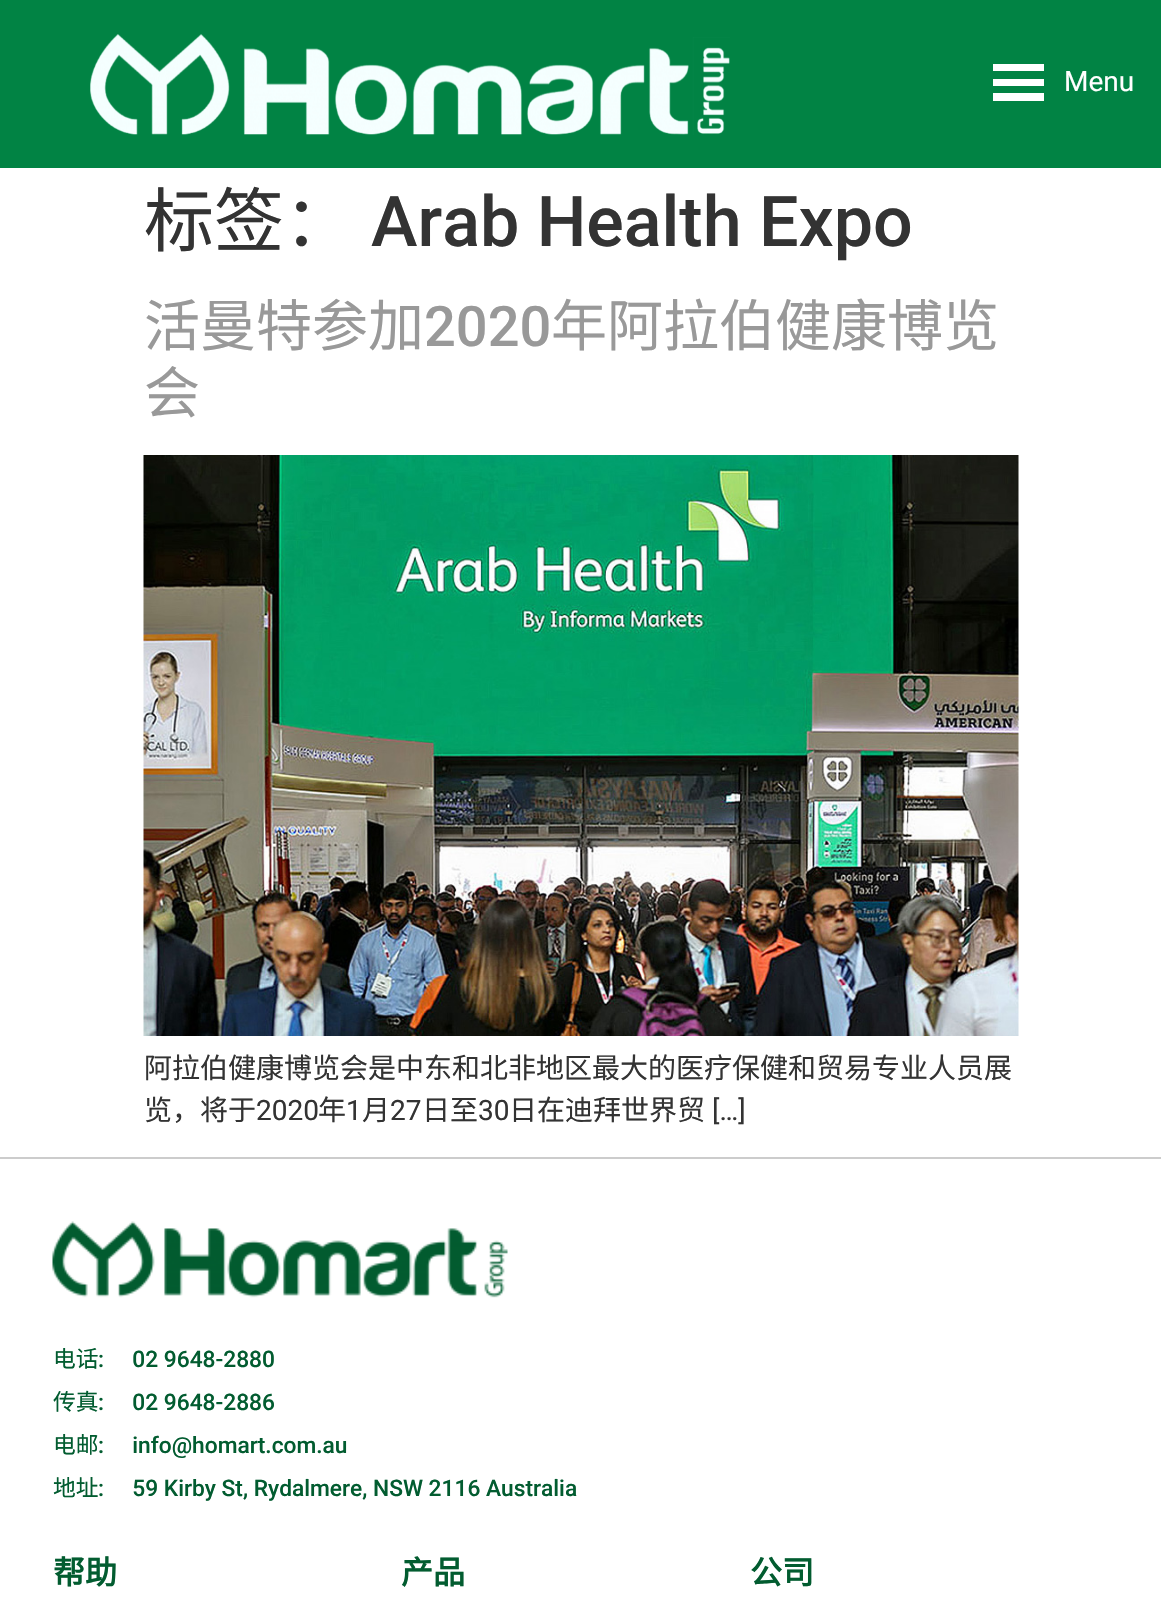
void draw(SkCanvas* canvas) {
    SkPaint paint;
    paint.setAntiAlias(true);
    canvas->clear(0xFFFFFFFF);
    paint.setColor(0xFF018344);
    canvas->drawRect(SkRect::MakeXYWH(0, 0, 1161, 168), paint);
    canvas->drawImageRect(SkImages::DeferredFromEncodedData(SkData::MakeFromFileName("img1.png")), SkRect::MakeXYWH(90, 34, 640, 101), SkSamplingOptions());
    paint.setColor(0xFFFFFFFF);
    canvas->drawPath(SkPathBuilder().moveTo(993, 101).lineTo(1044, 101).lineTo(1044, 93).lineTo(993, 93).close().moveTo(993, 64).lineTo(993, 71).lineTo(1044, 71).lineTo(1044, 64).close().moveTo(993, 86).lineTo(1044, 86).lineTo(1044, 79).lineTo(993, 79).close().detach(), paint);
    SkFont font1(fontMgr->matchFamilyStyle("Roboto", SkFontStyle::Normal()), 28);
    font1.setSubpixel(true);
    canvas->drawString("Menu", 1064, 91, font1, paint);
    SkFont font2(fontMgr->matchFamilyStyle("Noto Sans CJK SC", SkFontStyle::Normal()), 70);
    font2.setSubpixel(true);
    paint.setColor(0xFF333333);
    canvas->drawString("标签：", 144, 246, font2, paint);
    SkFont font3(fontMgr->matchFamilyStyle("Roboto", SkFontStyle(500, SkFontStyle::kNormal_Width, SkFontStyle::kUpright_Slant)), 70);
    font3.setSubpixel(true);
    canvas->drawString("Arab Health Expo", 371, 246, font3, paint);
    SkFont font4(fontMgr->matchFamilyStyle("Noto Sans CJK SC", SkFontStyle::Normal()), 56);
    font4.setSubpixel(true);
    paint.setColor(0xFF999999);
    canvas->drawString("活曼特参加", 144, 346, font4, paint);
    SkFont font5(fontMgr->matchFamilyStyle("Roboto", SkFontStyle(500, SkFontStyle::kNormal_Width, SkFontStyle::kUpright_Slant)), 56);
    font5.setSubpixel(true);
    canvas->drawString("2020", 424, 346, font5, paint);
    canvas->drawString("年阿拉伯健康博览", 551, 346, font4, paint);
    canvas->drawString("会", 144, 413, font4, paint);
    canvas->drawImageRect(SkImages::DeferredFromEncodedData(SkData::MakeFromFileName("img2.png")), SkRect::MakeXYWH(143, 455, 876, 581), SkSamplingOptions());
    SkFont font6(fontMgr->matchFamilyStyle("Noto Sans CJK SC", SkFontStyle::Normal()), 28);
    font6.setSubpixel(true);
    paint.setColor(0xFF333333);
    canvas->drawString("阿拉伯健康博览会是中东和北非地区最大的医疗保健和贸易专业人员展", 144, 1078, font6, paint);
    canvas->drawString("览，将于", 144, 1120, font6, paint);
    canvas->drawString("2020", 256, 1120, font1, paint);
    canvas->drawString("年", 318, 1120, font6, paint);
    canvas->drawString("1", 346, 1120, font1, paint);
    canvas->drawString("月", 362, 1120, font6, paint);
    canvas->drawString("27", 390, 1120, font1, paint);
    canvas->drawString("日至", 422, 1120, font6, paint);
    canvas->drawString("30", 478, 1120, font1, paint);
    canvas->drawString("日在迪拜世界贸", 509, 1120, font6, paint);
    canvas->drawString("[…]", 712, 1120, font1, paint);
    paint.setColor(0xFFCCCCCC);
    canvas->drawRect(SkRect::MakeXYWH(0, 1157, 1161, 2), paint);
    canvas->drawImageRect(SkImages::DeferredFromEncodedData(SkData::MakeFromFileName("img3.png")), SkRect::MakeXYWH(52, 1221, 456, 77), SkSamplingOptions());
    SkFont font7(fontMgr->matchFamilyStyle("Noto Sans CJK SC", SkFontStyle::Normal()), 22.75f);
    font7.setSubpixel(true);
    paint.setColor(0xFF025C30);
    canvas->drawString("电话", 53, 1367, font7, paint);
    SkFont font8(fontMgr->matchFamilyStyle("Roboto", SkFontStyle(500, SkFontStyle::kNormal_Width, SkFontStyle::kUpright_Slant)), 22.75f);
    font8.setSubpixel(true);
    canvas->drawString(":     02 9648-2880", 98, 1367, font8, paint);
    canvas->drawString("传真", 53, 1410, font7, paint);
    canvas->drawString(":     02 9648-2886", 98, 1410, font8, paint);
    canvas->drawString("电邮", 53, 1453, font7, paint);
    canvas->drawString(":     info@homart.com.au", 98, 1453, font8, paint);
    canvas->drawString("地址", 53, 1496, font7, paint);
    canvas->drawString(":     59 Kirby St, Rydalmere, NSW 2116 Australia", 98, 1496, font8, paint);
    SkFont font9(fontMgr->matchFamilyStyle("Noto Sans CJK SC", SkFontStyle::Bold()), 32);
    font9.setSubpixel(true);
    canvas->drawString("帮助", 53, 1584, font9, paint);
    canvas->drawString("产品", 401, 1584, font9, paint);
    canvas->drawString("公司", 750, 1584, font9, paint);
}
